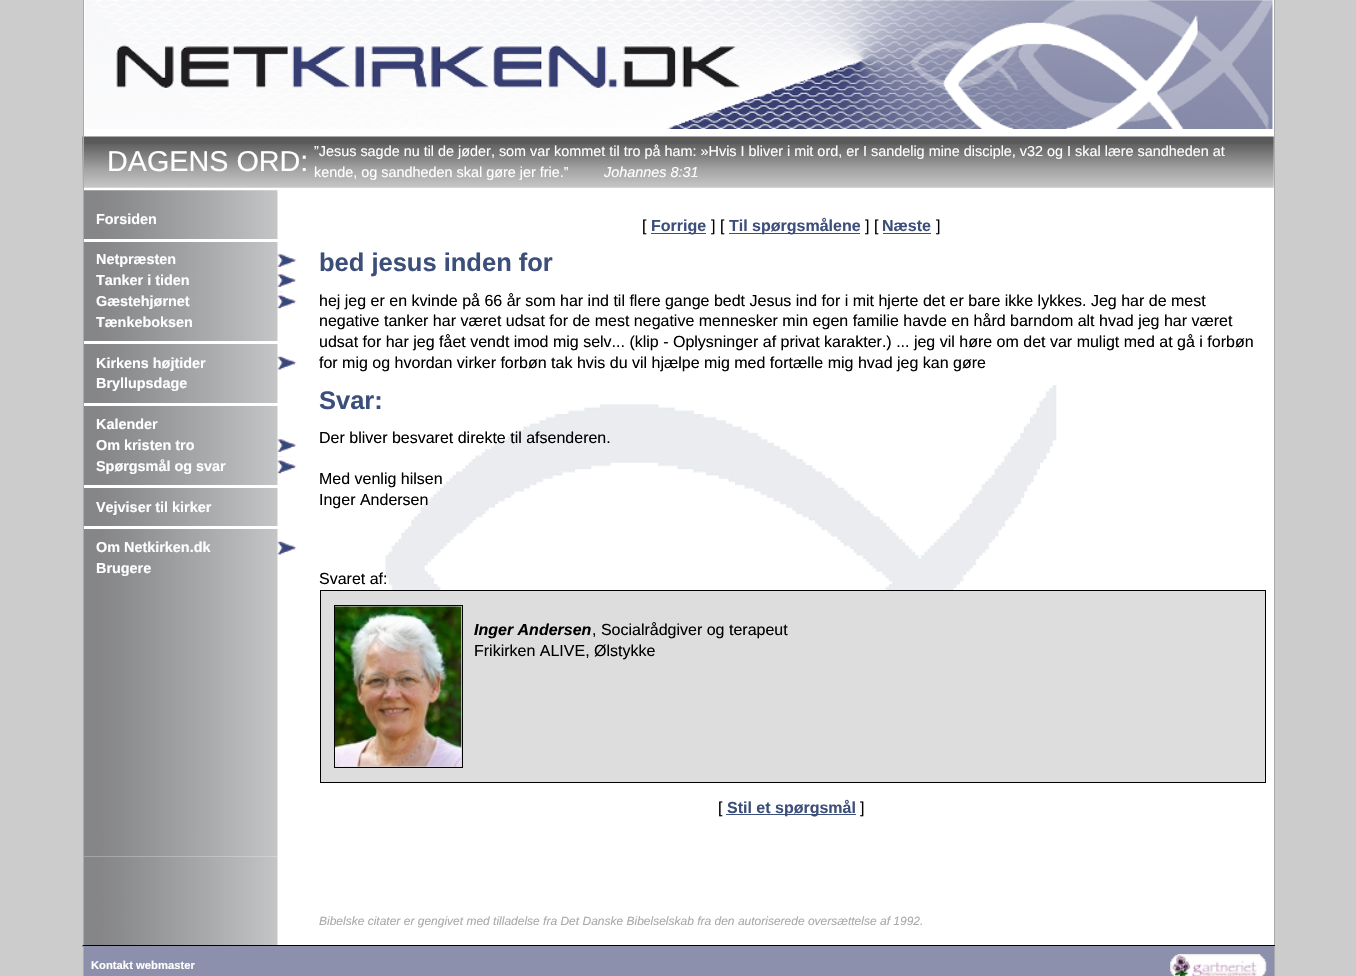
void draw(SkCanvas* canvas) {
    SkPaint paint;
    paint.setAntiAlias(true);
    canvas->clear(0xFFCCCCCC);
    paint.setColor(0xFFFFFFFF);
    canvas->drawRect(SkRect::MakeXYWH(84, 0, 1190, 945), paint);
    canvas->drawImageRect(SkImages::DeferredFromEncodedData(SkData::MakeFromFileName("img1.png")), SkRect::MakeXYWH(82, 385, 975, 562), SkSamplingOptions());
    paint.setColor(0xFFAAAAAA);
    canvas->drawRect(SkRect::MakeXYWH(1274, 0, 1, 976), paint);
    canvas->drawImageRect(SkImages::DeferredFromEncodedData(SkData::MakeFromFileName("img3.png")), SkRect::MakeXYWH(82, 136, 228, 52), SkSamplingOptions());
    canvas->drawRect(SkRect::MakeXYWH(83, 0, 1, 976), paint);
    canvas->drawImageRect(SkImages::DeferredFromEncodedData(SkData::MakeFromFileName("img2.png")), SkRect::MakeXYWH(85, 0, 1188, 129), SkSamplingOptions());
    SkFont font1(fontMgr->matchFamilyStyle("Liberation Sans", SkFontStyle::Normal()), 28.75f);
    font1.setSubpixel(true);
    paint.setColor(0xFFFFFFFF);
    canvas->drawString("DAGENS ORD:", 107, 171, font1, paint);
    canvas->drawImageRect(SkImages::DeferredFromEncodedData(SkData::MakeFromFileName("img4.png")), SkRect::MakeXYWH(310, 136, 964, 52), SkSamplingOptions());
    SkFont font2(fontMgr->matchFamilyStyle("Liberation Sans", SkFontStyle::Normal()), 14.4f);
    font2.setSubpixel(true);
    canvas->drawString("”Jesus sagde nu til de jøder, som var kommet til tro på ham: »Hvis I bliver i mit ord, er I sandelig mine disciple, v32 og I skal lære sandheden at", 314, 156, font2, paint);
    canvas->drawString("kende, og sandheden skal gøre jer frie.”", 314, 177, font2, paint);
    SkFont font3(fontMgr->matchFamilyStyle("Liberation Sans", SkFontStyle::Italic()), 14.4f);
    font3.setSubpixel(true);
    canvas->drawString("Johannes 8:31", 604, 177, font3, paint);
    canvas->drawImageRect(SkImages::DeferredFromEncodedData(SkData::MakeFromFileName("img5.png")), SkRect::MakeXYWH(84, 190, 194, 667), SkSamplingOptions());
    SkFont font4(fontMgr->matchFamilyStyle("Liberation Sans", SkFontStyle::Bold()), 14.4f);
    font4.setSubpixel(true);
    canvas->drawString("Forsiden", 96, 224, font4, paint);
    canvas->drawRect(SkRect::MakeXYWH(84, 239, 201, 3), paint);
    canvas->drawImageRect(SkImages::DeferredFromEncodedData(SkData::MakeFromFileName("img6.png")), SkRect::MakeXYWH(277, 254, 20, 13), SkSamplingOptions());
    canvas->drawString("Netpræsten", 96, 264, font4, paint);
    canvas->drawImageRect(SkImages::DeferredFromEncodedData(SkData::MakeFromFileName("img7.png")), SkRect::MakeXYWH(277, 274, 20, 18), SkSamplingOptions());
    canvas->drawString("Tanker i tiden", 96, 285, font4, paint);
    canvas->drawImageRect(SkImages::DeferredFromEncodedData(SkData::MakeFromFileName("img8.png")), SkRect::MakeXYWH(277, 295, 20, 14), SkSamplingOptions());
    canvas->drawString("Gæstehjørnet", 96, 306, font4, paint);
    canvas->drawString("Tænkeboksen", 96, 327, font4, paint);
    canvas->drawRect(SkRect::MakeXYWH(84, 341, 201, 3), paint);
    canvas->drawImageRect(SkImages::DeferredFromEncodedData(SkData::MakeFromFileName("img9.png")), SkRect::MakeXYWH(277, 356, 20, 14), SkSamplingOptions());
    canvas->drawString("Kirkens højtider", 96, 368, font4, paint);
    canvas->drawString("Bryllupsdage", 96, 388, font4, paint);
    canvas->drawRect(SkRect::MakeXYWH(84, 403, 201, 3), paint);
    canvas->drawString("Kalender", 96, 429, font4, paint);
    canvas->drawImageRect(SkImages::DeferredFromEncodedData(SkData::MakeFromFileName("img7.png")), SkRect::MakeXYWH(277, 439, 20, 18), SkSamplingOptions());
    canvas->drawString("Om kristen tro", 96, 450, font4, paint);
    canvas->drawImageRect(SkImages::DeferredFromEncodedData(SkData::MakeFromFileName("img8.png")), SkRect::MakeXYWH(277, 460, 20, 14), SkSamplingOptions());
    canvas->drawString("Spørgsmål og svar", 96, 471, font4, paint);
    canvas->drawRect(SkRect::MakeXYWH(84, 485, 201, 3), paint);
    canvas->drawString("Vejviser til kirker", 96, 512, font4, paint);
    canvas->drawRect(SkRect::MakeXYWH(84, 526, 201, 3), paint);
    canvas->drawImageRect(SkImages::DeferredFromEncodedData(SkData::MakeFromFileName("img10.png")), SkRect::MakeXYWH(277, 541, 20, 14), SkSamplingOptions());
    canvas->drawString("Om Netkirken.dk", 96, 552, font4, paint);
    canvas->drawString("Brugere", 96, 573, font4, paint);
    SkFont font5(fontMgr->matchFamilyStyle("Liberation Sans", SkFontStyle::Normal()), 16);
    font5.setSubpixel(true);
    paint.setColor(0xFF000000);
    canvas->drawString("[", 642, 231, font5, paint);
    paint.setColor(0xFF3C4E7A);
    canvas->drawRect(SkRect::MakeXYWH(651, 233, 55, 1), paint);
    SkFont font6(fontMgr->matchFamilyStyle("Liberation Sans", SkFontStyle::Bold()), 16);
    font6.setSubpixel(true);
    canvas->drawString("Forrige", 651, 231, font6, paint);
    paint.setColor(0xFF000000);
    canvas->drawString("] [", 711, 231, font5, paint);
    paint.setColor(0xFF3C4E7A);
    canvas->drawRect(SkRect::MakeXYWH(729, 233, 131, 1), paint);
    canvas->drawString("Til spørgsmålene", 729, 231, font6, paint);
    paint.setColor(0xFF000000);
    canvas->drawString("] [", 865, 231, font5, paint);
    paint.setColor(0xFF3C4E7A);
    canvas->drawString("Næste", 882, 231, font6, paint);
    canvas->drawRect(SkRect::MakeXYWH(883, 233, 48, 1), paint);
    paint.setColor(0xFF000000);
    canvas->drawString("]", 936, 231, font5, paint);
    SkFont font7(fontMgr->matchFamilyStyle("Liberation Sans", SkFontStyle::Bold()), 25.5f);
    font7.setSubpixel(true);
    paint.setColor(0xFF3C4E7A);
    canvas->drawString("bed jesus inden for", 319, 271, font7, paint);
    paint.setColor(0xFF000000);
    canvas->drawString("hej jeg er en kvinde på 66 år som har ind til flere gange bedt Jesus ind for i mit hjerte det er bare ikke lykkes. Jeg har de mest", 319, 306, font5, paint);
    canvas->drawString("negative tanker har været udsat for de mest negative mennesker min egen familie havde en hård barndom alt hvad jeg har været", 319, 326, font5, paint);
    canvas->drawString("udsat for har jeg fået vendt imod mig selv... (klip - Oplysninger af privat karakter.) ... jeg vil høre om det var muligt med at gå i forbøn", 319, 347, font5, paint);
    canvas->drawString("for mig og hvordan virker forbøn tak hvis du vil hjælpe mig med fortælle mig hvad jeg kan gøre", 319, 368, font5, paint);
    paint.setColor(0xFF3C4E7A);
    canvas->drawString("Svar:", 319, 409, font7, paint);
    paint.setColor(0xFF000000);
    canvas->drawString("Der bliver besvaret direkte til afsenderen.", 319, 443, font5, paint);
    canvas->drawString("Med venlig hilsen", 319, 484, font5, paint);
    canvas->drawString("Inger Andersen", 319, 505, font5, paint);
    canvas->drawString("Svaret af:", 319, 584, font5, paint);
    paint.setColor(0xFFDDDDDD);
    canvas->drawRect(SkRect::MakeXYWH(320.5f, 590.5f, 945, 192), paint);
    paint.setStyle(SkPaint::kStroke_Style);
    paint.setStrokeWidth(1);
    paint.setColor(0xFF000000);
    canvas->drawRect(SkRect::MakeXYWH(320.5f, 590.5f, 945, 192), paint);
    canvas->drawRect(SkRect::MakeXYWH(334.5f, 605.5f, 128, 162), paint);
    canvas->drawImageRect(SkImages::DeferredFromEncodedData(SkData::MakeFromFileName("img11.png")), SkRect::MakeXYWH(335, 606, 127, 161), SkSamplingOptions());
    SkFont font8(fontMgr->matchFamilyStyle("Liberation Sans", SkFontStyle::BoldItalic()), 16);
    font8.setSubpixel(true);
    paint.setStyle(SkPaint::kFill_Style);
    canvas->drawString("Inger Andersen", 474, 635, font8, paint);
    canvas->drawString(", Socialrådgiver og terapeut", 592, 635, font5, paint);
    canvas->drawString("Frikirken ALIVE, Ølstykke", 474, 656, font5, paint);
    canvas->drawString("[", 718, 813, font5, paint);
    paint.setColor(0xFF3C4E7A);
    canvas->drawRect(SkRect::MakeXYWH(726, 814, 130, 1), paint);
    canvas->drawString("Stil et spørgsmål", 727, 813, font6, paint);
    paint.setColor(0xFF000000);
    canvas->drawString("]", 860, 813, font5, paint);
    canvas->drawImageRect(SkImages::DeferredFromEncodedData(SkData::MakeFromFileName("img12.png")), SkRect::MakeXYWH(84, 856, 194, 33), SkSamplingOptions());
    canvas->drawImageRect(SkImages::DeferredFromEncodedData(SkData::MakeFromFileName("img13.png")), SkRect::MakeXYWH(84, 889, 194, 56), SkSamplingOptions());
    SkFont font9(fontMgr->matchFamilyStyle("Liberation Sans", SkFontStyle::Italic()), 12);
    font9.setSubpixel(true);
    paint.setColor(0xFFAAAAAA);
    canvas->drawString("Bibelske citater er gengivet med tilladelse fra Det Danske Bibelselskab fra den autoriserede oversættelse af 1992.", 319, 925, font9, paint);
    paint.setColor(0xFF000000);
    canvas->drawRect(SkRect::MakeXYWH(83, 945, 1192, 1), paint);
    paint.setColor(0xFF8C90AD);
    canvas->drawRect(SkRect::MakeXYWH(84, 946, 1190, 30), paint);
    canvas->drawImageRect(SkImages::DeferredFromEncodedData(SkData::MakeFromFileName("img14.png")), SkRect::MakeXYWH(1170, 954, 97, 22), SkSamplingOptions());
    SkFont font10(fontMgr->matchFamilyStyle("Liberation Sans", SkFontStyle::Bold()), 11.25f);
    font10.setSubpixel(true);
    paint.setColor(0xFFFFFFFF);
    canvas->drawString("Kontakt webmaster", 91, 969, font10, paint);
}
